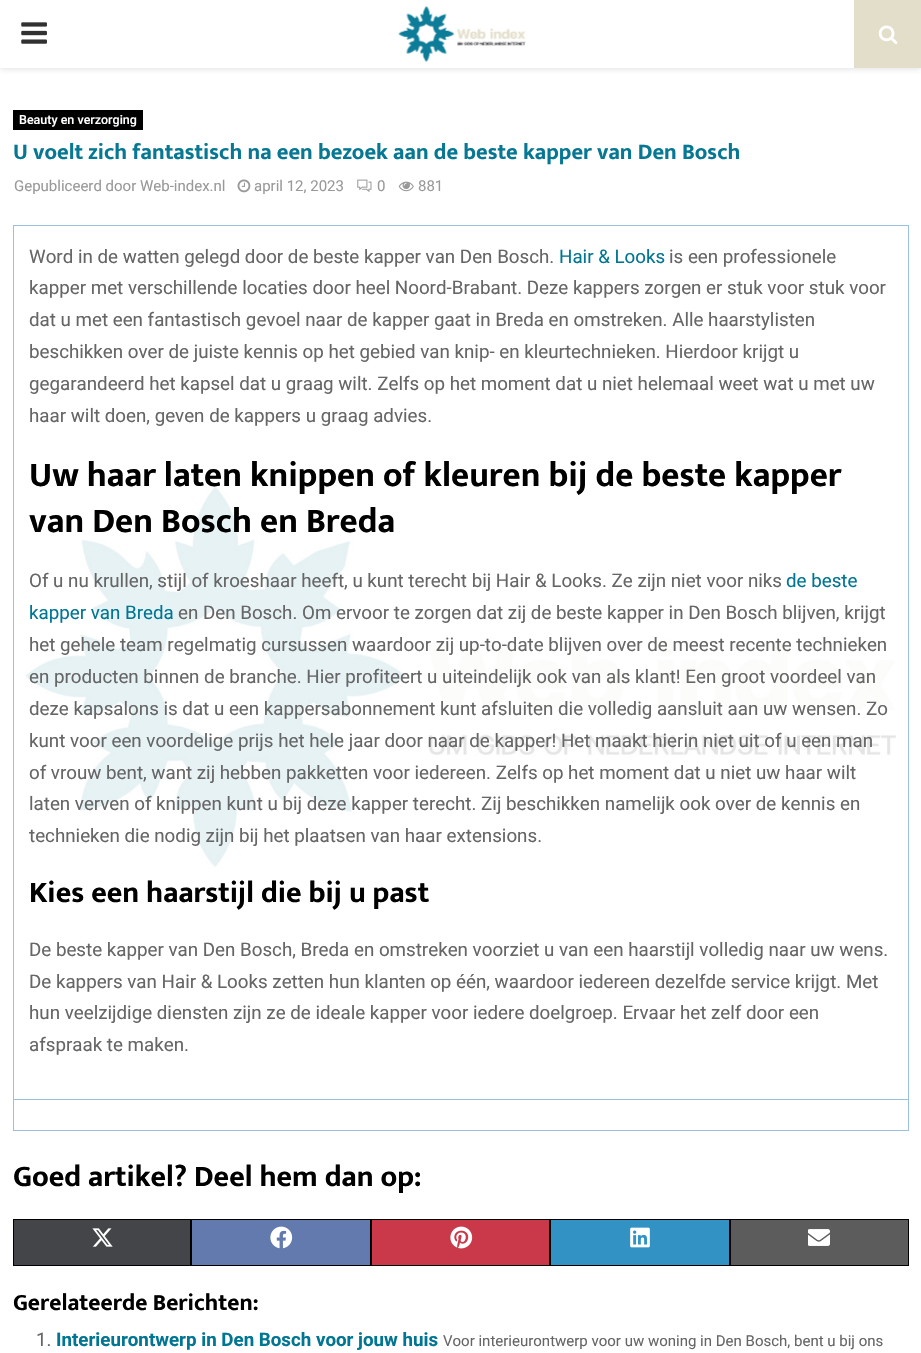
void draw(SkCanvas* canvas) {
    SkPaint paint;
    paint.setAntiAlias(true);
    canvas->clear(0xFFFFFFFF);
    canvas->drawImageRect(SkImages::DeferredFromEncodedData(SkData::MakeFromFileName("img1.png")), SkRect::MakeXYWH(25, 487, 871, 380), SkSamplingOptions());
    paint.setColor(0x75BEBEBE);
    paint.setMaskFilter(SkMaskFilter::MakeBlur(kNormal_SkBlurStyle, 3));
    canvas->drawRect(SkRect::MakeXYWH(0, 1, 921, 68), paint);
    paint.setMaskFilter(nullptr);
    paint.setColor(0xFFFFFFFF);
    canvas->drawRect(SkRect::MakeXYWH(0, 0, 854, 68), paint);
    canvas->drawImageRect(SkImages::DeferredFromEncodedData(SkData::MakeFromFileName("img2.png")), SkRect::MakeXYWH(21, 22, 26, 22), SkSamplingOptions());
    canvas->drawImageRect(SkImages::DeferredFromEncodedData(SkData::MakeFromFileName("img3.png")), SkRect::MakeXYWH(398, 5, 128, 57), SkSamplingOptions());
    paint.setColor(0xFFE3DECA);
    canvas->drawRect(SkRect::MakeXYWH(854, 0, 67, 68), paint);
    canvas->drawImageRect(SkImages::DeferredFromEncodedData(SkData::MakeFromFileName("img4.png")), SkRect::MakeXYWH(878, 25, 20, 19), SkSamplingOptions());
    paint.setColor(0xFF000000);
    canvas->drawRect(SkRect::MakeXYWH(13, 110, 130, 20), paint);
    SkFont font1(fontMgr->matchFamilyStyle("Roboto", SkFontStyle(500, SkFontStyle::kNormal_Width, SkFontStyle::kUpright_Slant)), 12.5f);
    font1.setSubpixel(true);
    paint.setColor(0xFFFFFFFF);
    canvas->drawString("Beauty en verzorging", 19, 124, font1, paint);
    SkFont font2(fontMgr->matchFamilyStyle("Mukta Vaani", SkFontStyle::Bold()), 22.5f);
    font2.setSubpixel(true);
    paint.setColor(0xFF077893);
    canvas->drawString("U voelt zich fantastisch na een bezoek aan de beste kapper van Den Bosch", 13, 159, font2, paint);
    SkFont font3(fontMgr->matchFamilyStyle("Roboto", SkFontStyle::Normal()), 15);
    font3.setSubpixel(true);
    paint.setColor(0xFF999999);
    canvas->drawString("Gepubliceerd door Web-index.nl", 14, 191, font3, paint);
    canvas->drawImageRect(SkImages::DeferredFromEncodedData(SkData::MakeFromFileName("img5.png")), SkRect::MakeXYWH(237, 179, 14, 14), SkSamplingOptions());
    canvas->drawString("april 12, 2023", 254, 191, font3, paint);
    canvas->drawImageRect(SkImages::DeferredFromEncodedData(SkData::MakeFromFileName("img6.png")), SkRect::MakeXYWH(357, 179, 15, 14), SkSamplingOptions());
    canvas->drawString("0", 377, 191, font3, paint);
    canvas->drawImageRect(SkImages::DeferredFromEncodedData(SkData::MakeFromFileName("img7.png")), SkRect::MakeXYWH(398, 181, 16, 11), SkSamplingOptions());
    canvas->drawString("881", 418, 191, font3, paint);
    paint.setColor(0xFF99C0E1);
    canvas->drawRect(SkRect::MakeXYWH(13, 225, 896, 1), paint);
    canvas->drawRect(SkRect::MakeXYWH(13, 1099, 896, 1), paint);
    canvas->drawRect(SkRect::MakeXYWH(908, 1099, 1, 32), paint);
    canvas->drawRect(SkRect::MakeXYWH(908, 225, 1, 875), paint);
    canvas->drawRect(SkRect::MakeXYWH(13, 1130, 896, 1), paint);
    canvas->drawRect(SkRect::MakeXYWH(13, 1099, 1, 32), paint);
    canvas->drawRect(SkRect::MakeXYWH(13, 225, 1, 875), paint);
    SkFont font4(fontMgr->matchFamilyStyle("Roboto", SkFontStyle::Normal()), 18.75f);
    font4.setSubpixel(true);
    paint.setColor(0xFF666666);
    canvas->drawString("Word in de watten gelegd door de beste kapper van Den Bosch.", 29, 263, font4, paint);
    paint.setColor(0xFF007693);
    canvas->drawString("Hair & Looks", 559, 263, font4, paint);
    paint.setColor(0xFF666666);
    canvas->drawString("is een professionele", 669, 263, font4, paint);
    canvas->drawString("kapper met verschillende locaties door heel Noord-Brabant. Deze kappers zorgen er stuk voor stuk voor", 29, 294, font4, paint);
    canvas->drawString("dat u met een fantastisch gevoel naar de kapper gaat in Breda en omstreken. Alle haarstylisten", 29, 326, font4, paint);
    canvas->drawString("beschikken over de juiste kennis op het gebied van knip- en kleurtechnieken. Hierdoor krijgt u", 29, 358, font4, paint);
    canvas->drawString("gegarandeerd het kapsel dat u graag wilt. Zelfs op het moment dat u niet helemaal weet wat u met uw", 29, 390, font4, paint);
    canvas->drawString("haar wilt doen, geven de kappers u graag advies.", 29, 422, font4, paint);
    SkFont font5(fontMgr->matchFamilyStyle("Mukta Vaani", SkFontStyle::Bold()), 35);
    font5.setSubpixel(true);
    paint.setColor(0xFF000000);
    canvas->drawString("Uw haar laten knippen of kleuren bij de beste kapper", 29, 486, font5, paint);
    canvas->drawString("van Den Bosch en Breda", 29, 532, font5, paint);
    paint.setColor(0xFF666666);
    canvas->drawString("Of u nu krullen, stijl of kroeshaar heeft, u kunt terecht bij Hair & Looks. Ze zijn niet voor niks", 29, 587, font4, paint);
    paint.setColor(0xFF007693);
    canvas->drawString("de beste", 786, 587, font4, paint);
    canvas->drawString("kapper van Breda", 29, 619, font4, paint);
    paint.setColor(0xFF666666);
    canvas->drawString("en Den Bosch. Om ervoor te zorgen dat zij de beste kapper in Den Bosch blijven, krijgt", 178, 619, font4, paint);
    canvas->drawString("het gehele team regelmatig cursussen waardoor zij up-to-date blijven over de meest recente technieken", 29, 651, font4, paint);
    canvas->drawString("en producten binnen de branche. Hier profiteert u uiteindelijk ook van als klant! Een groot voordeel van", 29, 683, font4, paint);
    canvas->drawString("deze kapsalons is dat u een kappersabonnement kunt afsluiten die volledig aansluit aan uw wensen. Zo", 29, 715, font4, paint);
    canvas->drawString("kunt voor een voordelige prijs het hele jaar door naar de kapper! Het maakt hierin niet uit of u een man", 29, 747, font4, paint);
    canvas->drawString("of vrouw bent, want zij hebben pakketten voor iedereen. Zelfs op het moment dat u niet uw haar wilt", 29, 779, font4, paint);
    canvas->drawString("laten verven of knippen kunt u bij deze kapper terecht. Zij beschikken namelijk ook over de kennis en", 29, 810, font4, paint);
    canvas->drawString("technieken die nodig zijn bij het plaatsen van haar extensions.", 29, 842, font4, paint);
    SkFont font6(fontMgr->matchFamilyStyle("Mukta Vaani", SkFontStyle::Bold()), 30);
    font6.setSubpixel(true);
    paint.setColor(0xFF000000);
    canvas->drawString("Kies een haarstijl die bij u past", 29, 902, font6, paint);
    paint.setColor(0xFF666666);
    canvas->drawString("De beste kapper van Den Bosch, Breda en omstreken voorziet u van een haarstijl volledig naar uw wens.", 29, 956, font4, paint);
    canvas->drawString("De kappers van Hair & Looks zetten hun klanten op één, waardoor iedereen dezelfde service krijgt. Met", 29, 988, font4, paint);
    canvas->drawString("hun veelzijdige diensten zijn ze de ideale kapper voor iedere doelgroep. Ervaar het zelf door een", 29, 1019, font4, paint);
    canvas->drawString("afspraak te maken.", 29, 1051, font4, paint);
    paint.setColor(0xFF000000);
    canvas->drawString("Goed artikel? Deel hem dan op:", 13, 1186, font6, paint);
    paint.setColor(0xFF434548);
    canvas->drawRect(SkRect::MakeXYWH(13.5f, 1219.5f, 177, 46), paint);
    paint.setStyle(SkPaint::kStroke_Style);
    paint.setStrokeWidth(1);
    paint.setColor(0xFF000000);
    canvas->drawRect(SkRect::MakeXYWH(13.5f, 1219.5f, 177, 46), paint);
    canvas->drawImageRect(SkImages::DeferredFromEncodedData(SkData::MakeFromFileName("img8.png")), SkRect::MakeXYWH(92, 1228, 21, 19), SkSamplingOptions());
    paint.setStyle(SkPaint::kFill_Style);
    paint.setColor(0xFF627AAD);
    canvas->drawRect(SkRect::MakeXYWH(191.5f, 1219.5f, 179, 46), paint);
    paint.setStyle(SkPaint::kStroke_Style);
    paint.setColor(0xFF000000);
    canvas->drawRect(SkRect::MakeXYWH(191.5f, 1219.5f, 179, 46), paint);
    canvas->drawImageRect(SkImages::DeferredFromEncodedData(SkData::MakeFromFileName("img9.png")), SkRect::MakeXYWH(270, 1226, 23, 23), SkSamplingOptions());
    paint.setStyle(SkPaint::kFill_Style);
    paint.setColor(0xFFCA3949);
    canvas->drawRect(SkRect::MakeXYWH(371.5f, 1219.5f, 178, 46), paint);
    paint.setStyle(SkPaint::kStroke_Style);
    paint.setColor(0xFF000000);
    canvas->drawRect(SkRect::MakeXYWH(371.5f, 1219.5f, 178, 46), paint);
    canvas->drawImageRect(SkImages::DeferredFromEncodedData(SkData::MakeFromFileName("img10.png")), SkRect::MakeXYWH(450, 1226, 23, 23), SkSamplingOptions());
    paint.setStyle(SkPaint::kFill_Style);
    paint.setColor(0xFF3392C4);
    canvas->drawRect(SkRect::MakeXYWH(550.5f, 1219.5f, 179, 46), paint);
    paint.setStyle(SkPaint::kStroke_Style);
    paint.setColor(0xFF000000);
    canvas->drawRect(SkRect::MakeXYWH(550.5f, 1219.5f, 179, 46), paint);
    canvas->drawImageRect(SkImages::DeferredFromEncodedData(SkData::MakeFromFileName("img11.png")), SkRect::MakeXYWH(630, 1227, 20, 21), SkSamplingOptions());
    paint.setStyle(SkPaint::kFill_Style);
    paint.setColor(0xFF5C5C5C);
    canvas->drawRect(SkRect::MakeXYWH(730.5f, 1219.5f, 178, 46), paint);
    paint.setStyle(SkPaint::kStroke_Style);
    paint.setColor(0xFF000000);
    canvas->drawRect(SkRect::MakeXYWH(730.5f, 1219.5f, 178, 46), paint);
    canvas->drawImageRect(SkImages::DeferredFromEncodedData(SkData::MakeFromFileName("img12.png")), SkRect::MakeXYWH(808, 1229, 22, 17), SkSamplingOptions());
    SkFont font7(fontMgr->matchFamilyStyle("Mukta Vaani", SkFontStyle::Bold()), 23.5f);
    font7.setSubpixel(true);
    paint.setStyle(SkPaint::kFill_Style);
    canvas->drawString("Gerelateerde Berichten:", 13, 1310, font7, paint);
    paint.setColor(0xFF666666);
    canvas->drawString("1.", 36, 1346, font4, paint);
    SkFont font8(fontMgr->matchFamilyStyle("Roboto", SkFontStyle::Bold()), 18.75f);
    font8.setSubpixel(true);
    paint.setColor(0xFF007693);
    canvas->drawString("Interieurontwerp in Den Bosch voor jouw huis", 56, 1346, font8, paint);
    paint.setColor(0xFF666666);
    canvas->drawString("Voor interieurontwerp voor uw woning in Den Bosch, bent u bij ons", 443, 1346, font3, paint);
}
